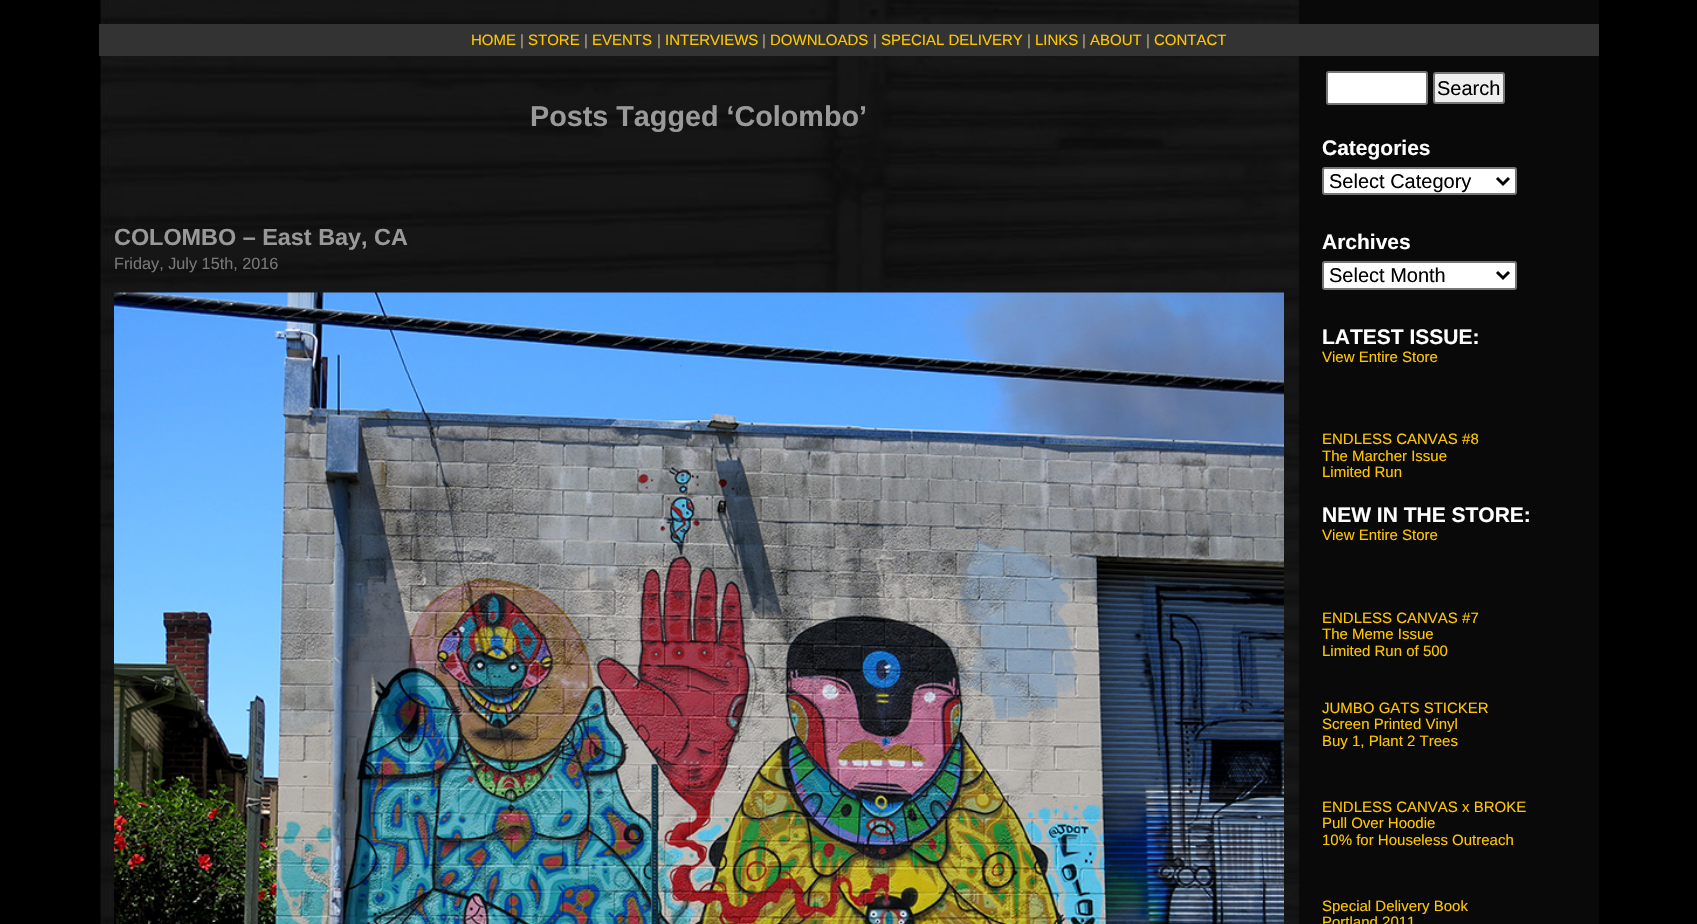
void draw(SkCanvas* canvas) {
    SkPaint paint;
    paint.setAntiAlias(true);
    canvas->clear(0xFF000000);
    canvas->drawImageRect(SkImages::DeferredFromEncodedData(SkData::MakeFromFileName("img1.png")), SkRect::MakeXYWH(100, 0, 1499, 924), SkSamplingOptions());
    paint.setColor(0xFF333333);
    canvas->drawRect(SkRect::MakeXYWH(99, 24, 1500, 32), paint);
    SkFont font1(fontMgr->matchFamilyStyle("Liberation Sans", SkFontStyle::Normal()), 15);
    font1.setSubpixel(true);
    paint.setColor(0xFFFFC600);
    canvas->drawString("HOME", 471, 45, font1, paint);
    paint.setColor(0xFFAEA679);
    canvas->drawString("|", 520, 45, font1, paint);
    paint.setColor(0xFFFFC600);
    canvas->drawString("STORE", 528, 45, font1, paint);
    paint.setColor(0xFFAEA679);
    canvas->drawString("|", 584, 45, font1, paint);
    paint.setColor(0xFFFFC600);
    canvas->drawString("EVENTS", 592, 45, font1, paint);
    paint.setColor(0xFFAEA679);
    canvas->drawString("|", 657, 45, font1, paint);
    paint.setColor(0xFFFFC600);
    canvas->drawString("INTERVIEWS", 665, 45, font1, paint);
    paint.setColor(0xFFAEA679);
    canvas->drawString("|", 762, 45, font1, paint);
    paint.setColor(0xFFFFC600);
    canvas->drawString("DOWNLOADS", 770, 45, font1, paint);
    paint.setColor(0xFFAEA679);
    canvas->drawString("|", 873, 45, font1, paint);
    paint.setColor(0xFFFFC600);
    canvas->drawString("SPECIAL DELIVERY", 881, 45, font1, paint);
    paint.setColor(0xFFAEA679);
    canvas->drawString("|", 1027, 45, font1, paint);
    paint.setColor(0xFFFFC600);
    canvas->drawString("LINKS", 1035, 45, font1, paint);
    paint.setColor(0xFFAEA679);
    canvas->drawString("|", 1082, 45, font1, paint);
    paint.setColor(0xFFFFC600);
    canvas->drawString("ABOUT", 1090, 45, font1, paint);
    paint.setColor(0xFFAEA679);
    canvas->drawString("|", 1146, 45, font1, paint);
    paint.setColor(0xFFFFC600);
    canvas->drawString("CONTACT", 1154, 45, font1, paint);
    SkFont font2(fontMgr->matchFamilyStyle("Liberation Sans", SkFontStyle::Bold()), 28.75f);
    font2.setSubpixel(true);
    paint.setColor(0xFF999999);
    canvas->drawString("Posts Tagged ‘Colombo’", 530, 126, font2, paint);
    SkFont font3(fontMgr->matchFamilyStyle("Liberation Sans", SkFontStyle::Bold()), 23.4f);
    font3.setSubpixel(true);
    canvas->drawString("COLOMBO – East Bay, CA", 114, 245, font3, paint);
    SkFont font4(fontMgr->matchFamilyStyle("Liberation Sans", SkFontStyle::Normal()), 16.25f);
    font4.setSubpixel(true);
    paint.setColor(0xFF777777);
    canvas->drawString("Friday, July 15th, 2016", 114, 269, font4, paint);
    canvas->drawImageRect(SkImages::DeferredFromEncodedData(SkData::MakeFromFileName("img2.png")), SkRect::MakeXYWH(114, 292, 1170, 632), SkSamplingOptions());
    paint.setColor(0xFFFFFFFF);
    canvas->drawRoundRect(SkRect::MakeXYWH(1327, 72, 100, 32), 2, 2, paint);
    paint.setStyle(SkPaint::kStroke_Style);
    paint.setStrokeWidth(2);
    paint.setColor(0xFF767676);
    canvas->drawRoundRect(SkRect::MakeXYWH(1327, 72, 100, 32), 2, 2, paint);
    paint.setStyle(SkPaint::kFill_Style);
    paint.setColor(0xFFEFEFEF);
    canvas->drawRoundRect(SkRect::MakeXYWH(1434, 73, 70, 30), 2, 2, paint);
    paint.setStyle(SkPaint::kStroke_Style);
    paint.setColor(0xFF767676);
    canvas->drawRoundRect(SkRect::MakeXYWH(1434, 73, 70, 30), 2, 2, paint);
    SkFont font5(fontMgr->matchFamilyStyle("Liberation Sans", SkFontStyle::Normal()), 20);
    font5.setSubpixel(true);
    paint.setStyle(SkPaint::kFill_Style);
    paint.setColor(0xFF000000);
    canvas->drawString("Search", 1437, 95, font5, paint);
    SkFont font6(fontMgr->matchFamilyStyle("Liberation Sans", SkFontStyle::Bold()), 21);
    font6.setSubpixel(true);
    paint.setColor(0xFFFFFFFF);
    canvas->drawString("Categories", 1322, 155, font6, paint);
    canvas->drawRoundRect(SkRect::MakeXYWH(1323, 168, 193, 26), 2, 2, paint);
    paint.setStyle(SkPaint::kStroke_Style);
    paint.setColor(0xFF767676);
    canvas->drawRoundRect(SkRect::MakeXYWH(1323, 168, 193, 26), 2, 2, paint);
    paint.setStrokeWidth(3);
    paint.setColor(0xFF000000);
    canvas->drawPath(SkPathBuilder().moveTo(1497, 178).lineTo(1503, 184).lineTo(1509, 178).detach(), paint);
    paint.setStyle(SkPaint::kFill_Style);
    canvas->drawString("Select Category", 1329, 188, font5, paint);
    paint.setColor(0xFFFFFFFF);
    canvas->drawString("Archives", 1322, 249, font6, paint);
    canvas->drawRoundRect(SkRect::MakeXYWH(1323, 262, 193, 27), 2, 2, paint);
    paint.setStyle(SkPaint::kStroke_Style);
    paint.setStrokeWidth(2);
    paint.setColor(0xFF767676);
    canvas->drawRoundRect(SkRect::MakeXYWH(1323, 262, 193, 27), 2, 2, paint);
    paint.setStrokeWidth(3);
    paint.setColor(0xFF000000);
    canvas->drawPath(SkPathBuilder().moveTo(1497, 272).lineTo(1503, 278).lineTo(1509, 272).detach(), paint);
    paint.setStyle(SkPaint::kFill_Style);
    canvas->drawString("Select Month", 1329, 282, font5, paint);
    paint.setColor(0xFFFFFFFF);
    canvas->drawString("LATEST ISSUE:", 1322, 344, font6, paint);
    paint.setColor(0xFFFFC600);
    canvas->drawString("View Entire Store", 1322, 362, font1, paint);
    canvas->drawString("ENDLESS CANVAS #8", 1322, 444, font1, paint);
    canvas->drawString("The Marcher Issue", 1322, 461, font1, paint);
    canvas->drawString("Limited Run", 1322, 477, font1, paint);
    paint.setColor(0xFFFFFFFF);
    canvas->drawString("NEW IN THE STORE:", 1322, 522, font6, paint);
    paint.setColor(0xFFFFC600);
    canvas->drawString("View Entire Store", 1322, 540, font1, paint);
    canvas->drawString("ENDLESS CANVAS #7", 1322, 623, font1, paint);
    canvas->drawString("The Meme Issue", 1322, 639, font1, paint);
    canvas->drawString("Limited Run of 500", 1322, 656, font1, paint);
    canvas->drawString("JUMBO GATS STICKER", 1322, 713, font1, paint);
    canvas->drawString("Screen Printed Vinyl", 1322, 729, font1, paint);
    canvas->drawString("Buy 1, Plant 2 Trees", 1322, 746, font1, paint);
    canvas->drawString("ENDLESS CANVAS x BROKE", 1322, 812, font1, paint);
    canvas->drawString("Pull Over Hoodie", 1322, 828, font1, paint);
    canvas->drawString("10% for Houseless Outreach", 1322, 845, font1, paint);
    canvas->drawString("Special Delivery Book", 1322, 911, font1, paint);
    canvas->drawString("Portland 2011", 1322, 927, font1, paint);
}
